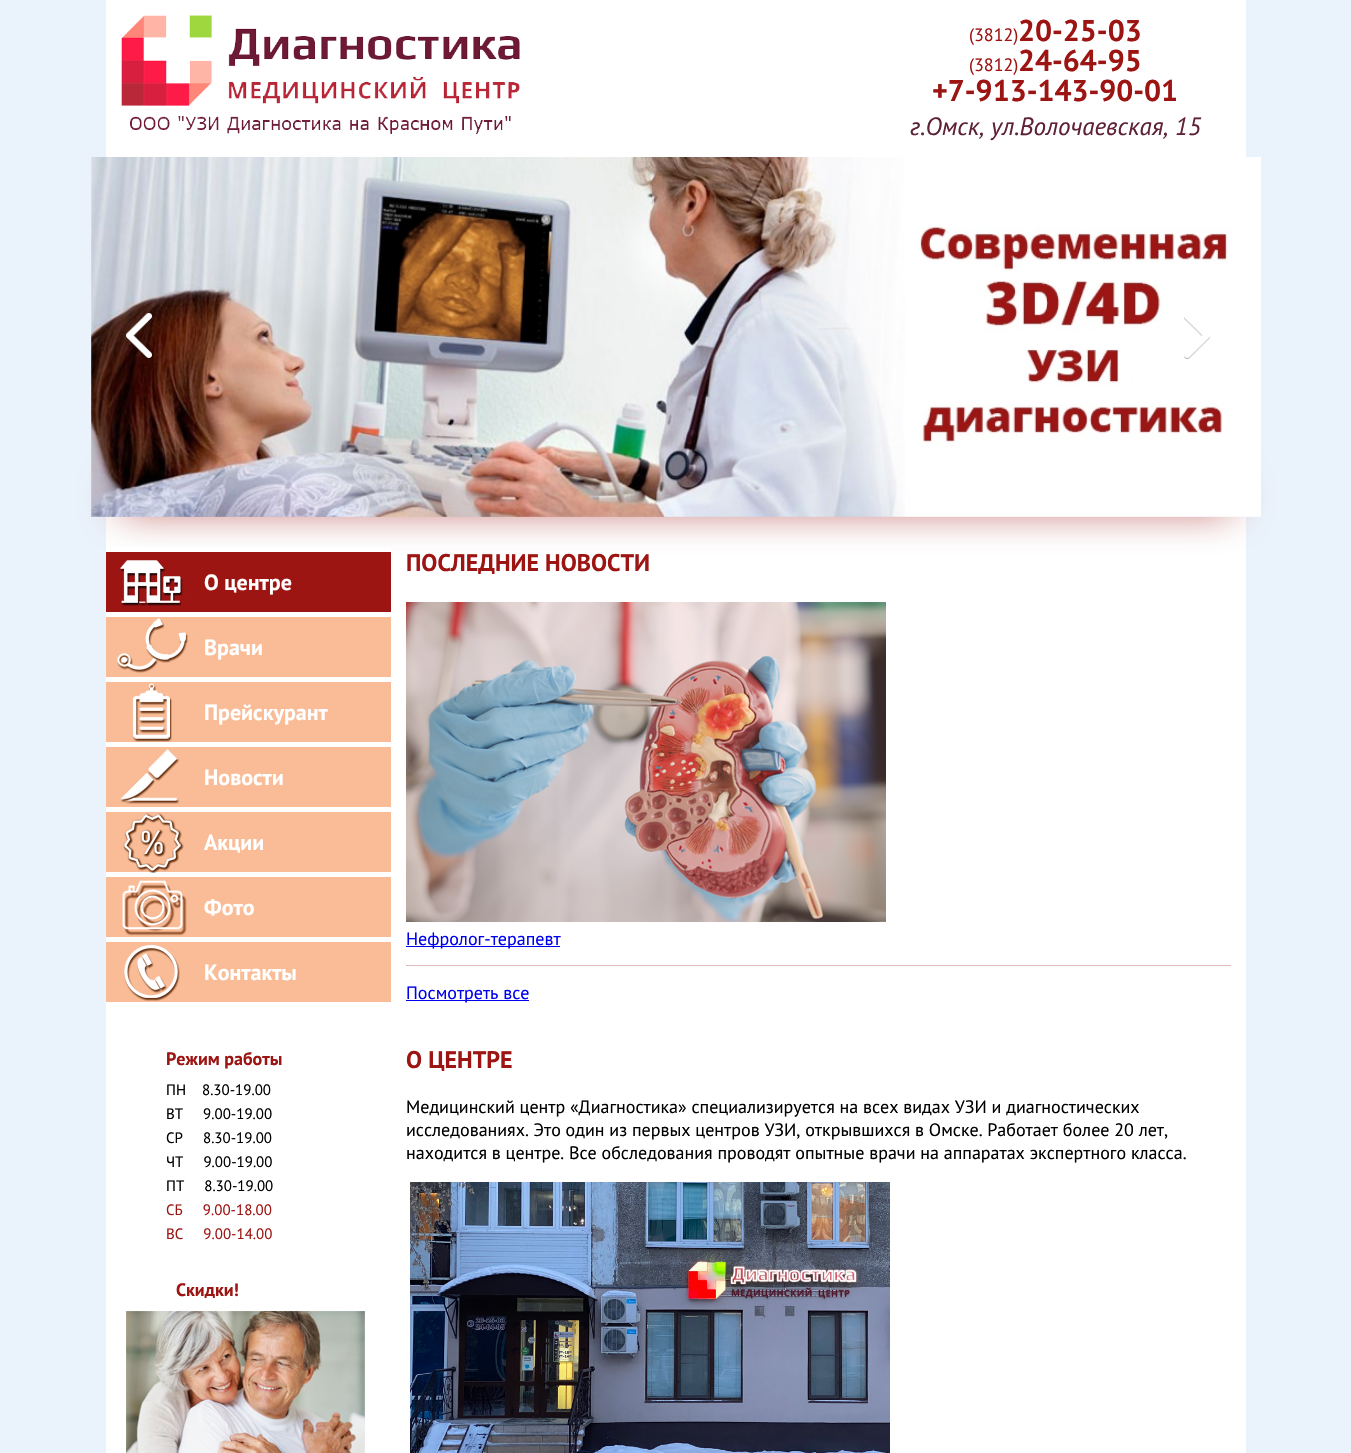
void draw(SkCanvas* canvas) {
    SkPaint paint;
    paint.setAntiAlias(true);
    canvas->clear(0xFFEAF3FC);
    paint.setColor(0xFFFFFFFF);
    canvas->drawRect(SkRect::MakeXYWH(106, 0, 1140, 157), paint);
    canvas->drawImageRect(SkImages::DeferredFromEncodedData(SkData::MakeFromFileName("img1.png")), SkRect::MakeXYWH(121, 15, 399, 119), SkSamplingOptions());
    SkFont font1(fontMgr->matchFamilyStyle("PT Sans", SkFontStyle::Normal()), 18);
    font1.setSubpixel(true);
    paint.setColor(0xFF9D1513);
    canvas->drawString("(3812)", 969, 41, font1, paint);
    SkFont font2(fontMgr->matchFamilyStyle("PT Sans", SkFontStyle::Bold()), 30);
    font2.setSubpixel(true);
    canvas->drawString("20-25-03", 1018, 41, font2, paint);
    canvas->drawString("(3812)", 969, 71, font1, paint);
    canvas->drawString("24-64-95", 1018, 71, font2, paint);
    canvas->drawString("+7-913-143-90-01", 932, 101, font2, paint);
    SkFont font3(fontMgr->matchFamilyStyle("PT Sans", SkFontStyle::Italic()), 25);
    font3.setSubpixel(true);
    paint.setColor(0xFF5E2137);
    canvas->drawString("г.Омск, ул.Волочаевская, 15", 910, 135, font3, paint);
    paint.setColor(0xFFFFFFFF);
    canvas->drawRect(SkRect::MakeXYWH(106, 517, 1140, 30), paint);
    canvas->drawRect(SkRect::MakeXYWH(391, 547, 855, 906), paint);
    paint.setColor(0xFF9D1513);
    paint.setMaskFilter(SkMaskFilter::MakeBlur(kNormal_SkBlurStyle, 20));
    canvas->drawRect(SkRect::MakeXYWH(121, 487, 1110, 20), paint);
    paint.setMaskFilter(nullptr);
    canvas->drawImageRect(SkImages::DeferredFromEncodedData(SkData::MakeFromFileName("img2.png")), SkRect::MakeXYWH(91, 157, 1170, 360), SkSamplingOptions());
    canvas->drawImageRect(SkImages::DeferredFromEncodedData(SkData::MakeFromFileName("img3.png")), SkRect::MakeXYWH(126, 313, 26, 46), SkSamplingOptions());
    canvas->drawImageRect(SkImages::DeferredFromEncodedData(SkData::MakeFromFileName("img4.png")), SkRect::MakeXYWH(1184, 317, 26, 42), SkSamplingOptions());
    paint.setColor(0xFFFFFFFF);
    canvas->drawRect(SkRect::MakeXYWH(106, 547, 285, 906), paint);
    paint.setColor(0xFF9D1513);
    canvas->drawRect(SkRect::MakeXYWH(106, 552, 285, 60), paint);
    canvas->drawImageRect(SkImages::DeferredFromEncodedData(SkData::MakeFromFileName("img5.png")), SkRect::MakeXYWH(120, 560, 68, 46), SkSamplingOptions());
    SkFont font4(fontMgr->matchFamilyStyle("PT Sans", SkFontStyle::Bold()), 22);
    font4.setSubpixel(true);
    paint.setColor(0xFFFFFFFF);
    canvas->drawString("О центре", 204, 590, font4, paint);
    paint.setColor(0xFFF9BC96);
    canvas->drawRect(SkRect::MakeXYWH(106, 617, 285, 60), paint);
    canvas->drawImageRect(SkImages::DeferredFromEncodedData(SkData::MakeFromFileName("img6.png")), SkRect::MakeXYWH(117, 618, 71, 55), SkSamplingOptions());
    paint.setColor(0xFFFFFFFF);
    canvas->drawString("Врачи", 204, 655, font4, paint);
    paint.setColor(0xFFF9BC96);
    canvas->drawRect(SkRect::MakeXYWH(106, 682, 285, 60), paint);
    canvas->drawImageRect(SkImages::DeferredFromEncodedData(SkData::MakeFromFileName("img7.png")), SkRect::MakeXYWH(132, 683, 40, 59), SkSamplingOptions());
    paint.setColor(0xFFFFFFFF);
    canvas->drawString("Прейскурант", 204, 720, font4, paint);
    paint.setColor(0xFFF9BC96);
    canvas->drawRect(SkRect::MakeXYWH(106, 747, 285, 60), paint);
    canvas->drawImageRect(SkImages::DeferredFromEncodedData(SkData::MakeFromFileName("img8.png")), SkRect::MakeXYWH(120, 749, 60, 55), SkSamplingOptions());
    paint.setColor(0xFFFFFFFF);
    canvas->drawString("Новости", 204, 785, font4, paint);
    paint.setColor(0xFFF9BC96);
    canvas->drawRect(SkRect::MakeXYWH(106, 812, 285, 60), paint);
    canvas->drawImageRect(SkImages::DeferredFromEncodedData(SkData::MakeFromFileName("img9.png")), SkRect::MakeXYWH(123, 813, 61, 60), SkSamplingOptions());
    paint.setColor(0xFFFFFFFF);
    canvas->drawString("Акции", 204, 850, font4, paint);
    paint.setColor(0xFFF9BC96);
    canvas->drawRect(SkRect::MakeXYWH(106, 877, 285, 60), paint);
    canvas->drawImageRect(SkImages::DeferredFromEncodedData(SkData::MakeFromFileName("img10.png")), SkRect::MakeXYWH(122, 880, 65, 56), SkSamplingOptions());
    paint.setColor(0xFFFFFFFF);
    canvas->drawString("Фото", 204, 915, font4, paint);
    paint.setColor(0xFFF9BC96);
    canvas->drawRect(SkRect::MakeXYWH(106, 942, 285, 60), paint);
    canvas->drawImageRect(SkImages::DeferredFromEncodedData(SkData::MakeFromFileName("img11.png")), SkRect::MakeXYWH(124, 945, 56, 56), SkSamplingOptions());
    paint.setColor(0xFFFFFFFF);
    canvas->drawString("Контакты", 204, 980, font4, paint);
    SkFont font5(fontMgr->matchFamilyStyle("PT Sans", SkFontStyle::Bold()), 18);
    font5.setSubpixel(true);
    paint.setColor(0xFF9D1513);
    canvas->drawString("Режим работы", 166, 1065, font5, paint);
    SkFont font6(fontMgr->matchFamilyStyle("PT Sans", SkFontStyle::Normal()), 15);
    font6.setSubpixel(true);
    paint.setColor(0xFF000000);
    canvas->drawString("ПН    8.30-19.00", 166, 1095, font6, paint);
    canvas->drawString("ВТ     9.00-19.00", 166, 1119, font6, paint);
    canvas->drawString("СР     8.30-19.00", 166, 1143, font6, paint);
    canvas->drawString("ЧТ     9.00-19.00", 166, 1167, font6, paint);
    canvas->drawString("ПТ     8.30-19.00", 166, 1191, font6, paint);
    paint.setColor(0xFF9D1513);
    canvas->drawString("СБ     9.00-18.00", 166, 1215, font6, paint);
    canvas->drawString("ВС     9.00-14.00", 166, 1239, font6, paint);
    canvas->drawString("Скидки!", 176, 1296, font5, paint);
    canvas->drawImageRect(SkImages::DeferredFromEncodedData(SkData::MakeFromFileName("img12.png")), SkRect::MakeXYWH(126, 1311, 239, 142), SkSamplingOptions());
    SkFont font7(fontMgr->matchFamilyStyle("PT Sans", SkFontStyle::Bold()), 24);
    font7.setSubpixel(true);
    canvas->drawString("ПОСЛЕДНИЕ НОВОСТИ", 406, 571, font7, paint);
    canvas->drawImageRect(SkImages::DeferredFromEncodedData(SkData::MakeFromFileName("img13.png")), SkRect::MakeXYWH(406, 602, 480, 320), SkSamplingOptions());
    paint.setColor(0xFF0000EE);
    canvas->drawRect(SkRect::MakeXYWH(406, 946, 154, 1), paint);
    canvas->drawString("Нефролог-терапевт", 406, 945, font1, paint);
    paint.setColor(0xFFE2B9B8);
    canvas->drawRect(SkRect::MakeXYWH(406, 965, 825, 1), paint);
    paint.setColor(0xFF0000EE);
    canvas->drawRect(SkRect::MakeXYWH(406, 1000, 123, 1), paint);
    canvas->drawString("Посмотреть все", 406, 999, font1, paint);
    paint.setColor(0xFF9D1513);
    canvas->drawString("О ЦЕНТРЕ", 406, 1068, font7, paint);
    paint.setColor(0xFF000000);
    canvas->drawString("Медицинский центр «Диагностика» специализируется на всех видах УЗИ и диагностических", 406, 1113, font1, paint);
    canvas->drawString("исследованиях. Это один из первых центров УЗИ, открывшихся в Омске. Работает более 20 лет,", 406, 1136, font1, paint);
    canvas->drawString("находится в центре. Все обследования проводят опытные врачи на аппаратах экспертного класса.", 406, 1159, font1, paint);
    canvas->drawImageRect(SkImages::DeferredFromEncodedData(SkData::MakeFromFileName("img14.png")), SkRect::MakeXYWH(410, 1182, 480, 271), SkSamplingOptions());
}
